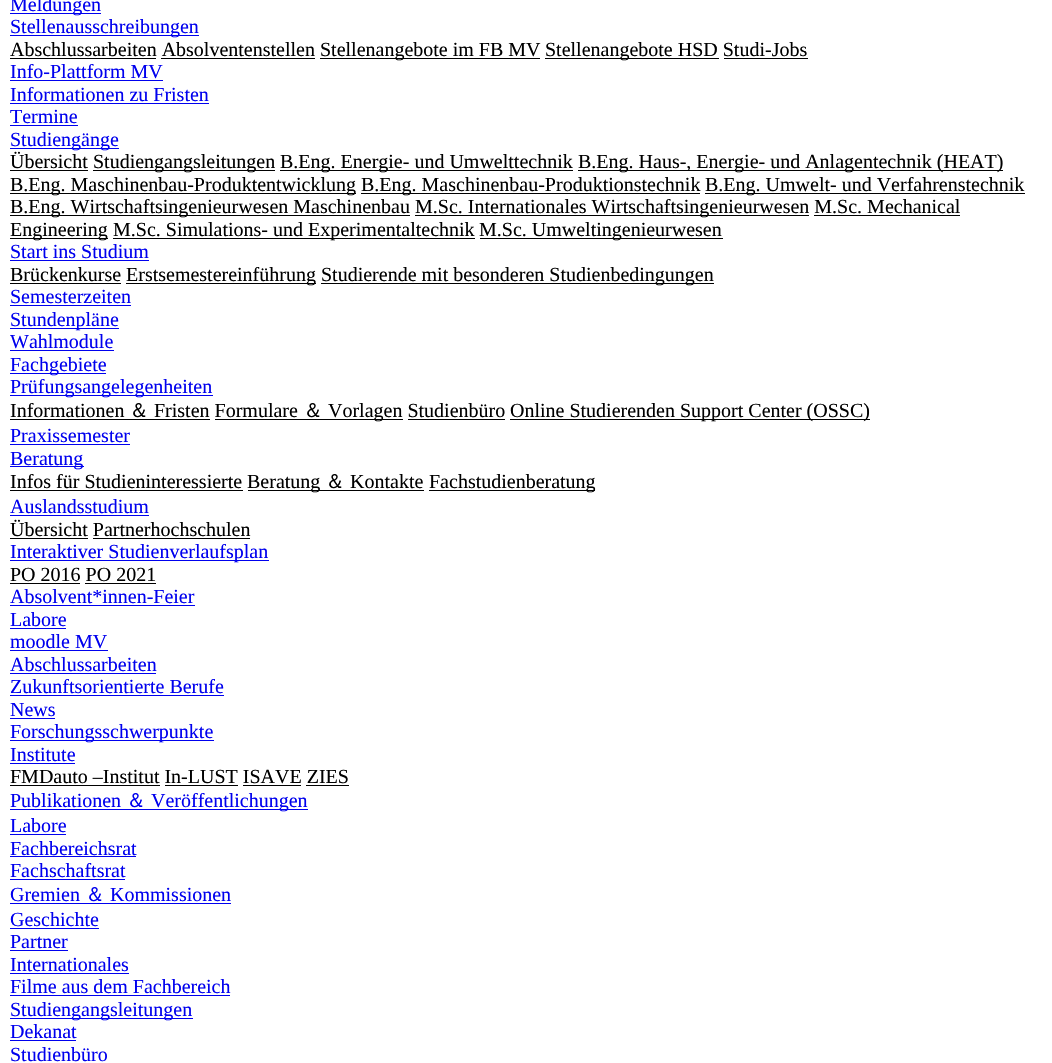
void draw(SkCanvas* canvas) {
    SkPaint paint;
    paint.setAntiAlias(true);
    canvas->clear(0xFFFFFFFF);
    paint.setColor(0xFF0000EE);
    canvas->drawRect(SkRect::MakeXYWH(10, 13, 91, 1), paint);
    SkFont font1(fontMgr->matchFamilyStyle("Liberation Serif", SkFontStyle::Normal()), 20);
    font1.setSubpixel(true);
    canvas->drawString("Meldungen", 10, 11, font1, paint);
    canvas->drawRect(SkRect::MakeXYWH(10, 35, 189, 1), paint);
    canvas->drawString("Stellenausschreibungen", 10, 33, font1, paint);
    paint.setColor(0xFF000000);
    canvas->drawString("Abschlussarbeiten Absolventenstellen", 10, 56, font1, paint);
    canvas->drawRect(SkRect::MakeXYWH(10, 58, 146, 1), paint);
    canvas->drawRect(SkRect::MakeXYWH(320, 58, 220, 1), paint);
    canvas->drawString("Stellenangebote im FB MV", 320, 56, font1, paint);
    canvas->drawRect(SkRect::MakeXYWH(545, 58, 174, 1), paint);
    canvas->drawString("Stellenangebote HSD Studi-Jobs", 545, 56, font1, paint);
    canvas->drawRect(SkRect::MakeXYWH(161, 58, 154, 1), paint);
    canvas->drawRect(SkRect::MakeXYWH(724, 58, 84, 1), paint);
    paint.setColor(0xFF0000EE);
    canvas->drawString("Info-Plattform MV", 10, 78, font1, paint);
    canvas->drawRect(SkRect::MakeXYWH(10, 80, 153, 1), paint);
    canvas->drawString("Informationen zu Fristen", 10, 101, font1, paint);
    canvas->drawRect(SkRect::MakeXYWH(10, 103, 199, 1), paint);
    canvas->drawString("Termine", 10, 123, font1, paint);
    canvas->drawRect(SkRect::MakeXYWH(10, 125, 68, 1), paint);
    canvas->drawRect(SkRect::MakeXYWH(10, 148, 109, 1), paint);
    canvas->drawString("Studiengänge", 10, 146, font1, paint);
    paint.setColor(0xFF000000);
    canvas->drawString("Übersicht", 10, 168, font1, paint);
    canvas->drawRect(SkRect::MakeXYWH(10, 170, 78, 1), paint);
    canvas->drawRect(SkRect::MakeXYWH(93, 170, 182, 1), paint);
    canvas->drawString("Studiengangsleitungen", 93, 168, font1, paint);
    canvas->drawRect(SkRect::MakeXYWH(280, 170, 293, 1), paint);
    canvas->drawString("B.Eng. Energie- und Umwelttechnik", 280, 168, font1, paint);
    canvas->drawRect(SkRect::MakeXYWH(578, 170, 425, 1), paint);
    canvas->drawString("B.Eng. Haus-, Energie- und Anlagentechnik (HEAT)", 578, 168, font1, paint);
    canvas->drawRect(SkRect::MakeXYWH(10, 193, 346, 1), paint);
    canvas->drawString("B.Eng. Maschinenbau-Produktentwicklung", 10, 191, font1, paint);
    canvas->drawRect(SkRect::MakeXYWH(361, 193, 339, 1), paint);
    canvas->drawString("B.Eng. Maschinenbau-Produktionstechnik", 361, 191, font1, paint);
    canvas->drawRect(SkRect::MakeXYWH(705, 193, 320, 1), paint);
    canvas->drawString("B.Eng. Umwelt- und Verfahrenstechnik", 705, 191, font1, paint);
    canvas->drawRect(SkRect::MakeXYWH(10, 215, 400, 1), paint);
    canvas->drawString("B.Eng. Wirtschaftsingenieurwesen Maschinenbau", 10, 213, font1, paint);
    canvas->drawRect(SkRect::MakeXYWH(415, 215, 394, 1), paint);
    canvas->drawString("M.Sc. Internationales Wirtschaftsingenieurwesen M.Sc. Mechanical", 415, 213, font1, paint);
    canvas->drawRect(SkRect::MakeXYWH(10, 238, 98, 1), paint);
    canvas->drawString("Engineering", 10, 236, font1, paint);
    canvas->drawRect(SkRect::MakeXYWH(814, 215, 146, 1), paint);
    canvas->drawRect(SkRect::MakeXYWH(113, 238, 362, 1), paint);
    canvas->drawString("M.Sc. Simulations- und Experimentaltechnik", 113, 236, font1, paint);
    canvas->drawRect(SkRect::MakeXYWH(480, 238, 243, 1), paint);
    canvas->drawString("M.Sc. Umweltingenieurwesen", 479, 236, font1, paint);
    paint.setColor(0xFF0000EE);
    canvas->drawString("Start ins Studium", 10, 258, font1, paint);
    canvas->drawRect(SkRect::MakeXYWH(10, 260, 139, 1), paint);
    paint.setColor(0xFF000000);
    canvas->drawString("Brückenkurse", 10, 281, font1, paint);
    canvas->drawRect(SkRect::MakeXYWH(10, 283, 111, 1), paint);
    canvas->drawRect(SkRect::MakeXYWH(126, 283, 190, 1), paint);
    canvas->drawString("Erstsemestereinführung", 126, 281, font1, paint);
    canvas->drawRect(SkRect::MakeXYWH(321, 283, 393, 1), paint);
    canvas->drawString("Studierende mit besonderen Studienbedingungen", 321, 281, font1, paint);
    paint.setColor(0xFF0000EE);
    canvas->drawString("Semesterzeiten", 10, 303, font1, paint);
    canvas->drawRect(SkRect::MakeXYWH(10, 305, 121, 1), paint);
    canvas->drawRect(SkRect::MakeXYWH(10, 328, 109, 1), paint);
    canvas->drawString("Stundenpläne", 10, 326, font1, paint);
    canvas->drawString("Wahlmodule", 10, 348, font1, paint);
    canvas->drawRect(SkRect::MakeXYWH(10, 350, 104, 1), paint);
    canvas->drawRect(SkRect::MakeXYWH(10, 373, 96, 1), paint);
    canvas->drawString("Fachgebiete", 10, 371, font1, paint);
    canvas->drawRect(SkRect::MakeXYWH(10, 395, 203, 1), paint);
    canvas->drawString("Prüfungsangelegenheiten", 10, 393, font1, paint);
    paint.setColor(0xFF000000);
    canvas->drawString("Informationen", 10, 417, font1, paint);
    SkFont font2(fontMgr->matchFamilyStyle("WenQuanYi Zen Hei", SkFontStyle(500, SkFontStyle::kNormal_Width, SkFontStyle::kUpright_Slant)), 20);
    font2.setSubpixel(true);
    canvas->drawString("＆", 129, 417, font2, paint);
    canvas->drawRect(SkRect::MakeXYWH(10, 419, 200, 1), paint);
    canvas->drawString("Fristen Formulare", 154, 417, font1, paint);
    canvas->drawString("＆", 303, 417, font2, paint);
    canvas->drawRect(SkRect::MakeXYWH(215, 419, 188, 1), paint);
    canvas->drawString("Vorlagen Studienbüro", 328, 417, font1, paint);
    canvas->drawRect(SkRect::MakeXYWH(510, 419, 360, 1), paint);
    canvas->drawString("Online Studierenden Support Center (OSSC)", 510, 417, font1, paint);
    canvas->drawRect(SkRect::MakeXYWH(408, 419, 97, 1), paint);
    paint.setColor(0xFF0000EE);
    canvas->drawString("Praxissemester", 10, 442, font1, paint);
    canvas->drawRect(SkRect::MakeXYWH(10, 444, 120, 1), paint);
    canvas->drawRect(SkRect::MakeXYWH(10, 466, 74, 1), paint);
    canvas->drawString("Beratung", 10, 465, font1, paint);
    paint.setColor(0xFF000000);
    canvas->drawString("Infos für Studieninteressierte", 10, 488, font1, paint);
    canvas->drawRect(SkRect::MakeXYWH(10, 490, 233, 1), paint);
    canvas->drawRect(SkRect::MakeXYWH(248, 490, 176, 1), paint);
    canvas->drawString("Beratung", 247, 488, font1, paint);
    canvas->drawString("＆", 325, 488, font2, paint);
    canvas->drawString("Kontakte", 350, 488, font1, paint);
    canvas->drawRect(SkRect::MakeXYWH(429, 490, 166, 1), paint);
    canvas->drawString("Fachstudienberatung", 429, 488, font1, paint);
    paint.setColor(0xFF0000EE);
    canvas->drawString("Auslandsstudium", 10, 513, font1, paint);
    canvas->drawRect(SkRect::MakeXYWH(10, 515, 139, 1), paint);
    paint.setColor(0xFF000000);
    canvas->drawString("Übersicht Partnerhochschulen", 10, 536, font1, paint);
    canvas->drawRect(SkRect::MakeXYWH(10, 538, 78, 1), paint);
    canvas->drawRect(SkRect::MakeXYWH(93, 538, 157, 1), paint);
    paint.setColor(0xFF0000EE);
    canvas->drawRect(SkRect::MakeXYWH(10, 560, 259, 1), paint);
    canvas->drawString("Interaktiver Studienverlaufsplan", 10, 558, font1, paint);
    paint.setColor(0xFF000000);
    canvas->drawString("PO 2016 PO 2021", 10, 581, font1, paint);
    canvas->drawRect(SkRect::MakeXYWH(10, 583, 70, 1), paint);
    canvas->drawRect(SkRect::MakeXYWH(85, 583, 71, 1), paint);
    paint.setColor(0xFF0000EE);
    canvas->drawString("Absolvent*innen-Feier", 10, 603, font1, paint);
    canvas->drawRect(SkRect::MakeXYWH(10, 605, 185, 1), paint);
    canvas->drawString("Labore", 10, 626, font1, paint);
    canvas->drawRect(SkRect::MakeXYWH(10, 628, 56, 1), paint);
    canvas->drawString("moodle MV", 10, 648, font1, paint);
    canvas->drawRect(SkRect::MakeXYWH(10, 650, 98, 1), paint);
    canvas->drawString("Abschlussarbeiten", 10, 671, font1, paint);
    canvas->drawRect(SkRect::MakeXYWH(10, 673, 146, 1), paint);
    canvas->drawString("Zukunftsorientierte Berufe", 10, 693, font1, paint);
    canvas->drawRect(SkRect::MakeXYWH(10, 695, 214, 1), paint);
    canvas->drawString("News", 10, 716, font1, paint);
    canvas->drawRect(SkRect::MakeXYWH(10, 718, 45, 1), paint);
    canvas->drawRect(SkRect::MakeXYWH(10, 740, 204, 1), paint);
    canvas->drawString("Forschungsschwerpunkte", 10, 738, font1, paint);
    canvas->drawString("Institute", 10, 761, font1, paint);
    canvas->drawRect(SkRect::MakeXYWH(10, 763, 65, 1), paint);
    paint.setColor(0xFF000000);
    canvas->drawString("FMDauto –Institut In-LUST ISAVE ZIES", 10, 783, font1, paint);
    canvas->drawRect(SkRect::MakeXYWH(10, 785, 150, 1), paint);
    canvas->drawRect(SkRect::MakeXYWH(165, 785, 73, 1), paint);
    canvas->drawRect(SkRect::MakeXYWH(243, 785, 58, 1), paint);
    canvas->drawRect(SkRect::MakeXYWH(306, 785, 43, 1), paint);
    paint.setColor(0xFF0000EE);
    canvas->drawString("Publikationen", 10, 807, font1, paint);
    canvas->drawString("＆", 126, 807, font2, paint);
    canvas->drawRect(SkRect::MakeXYWH(10, 809, 298, 1), paint);
    canvas->drawString("Veröffentlichungen", 151, 807, font1, paint);
    canvas->drawString("Labore", 10, 832, font1, paint);
    canvas->drawRect(SkRect::MakeXYWH(10, 834, 56, 1), paint);
    canvas->drawString("Fachbereichsrat", 10, 855, font1, paint);
    canvas->drawRect(SkRect::MakeXYWH(10, 856, 126, 1), paint);
    canvas->drawString("Fachschaftsrat", 10, 877, font1, paint);
    canvas->drawRect(SkRect::MakeXYWH(10, 879, 115, 1), paint);
    canvas->drawString("Gremien", 10, 901, font1, paint);
    canvas->drawRect(SkRect::MakeXYWH(10, 903, 221, 1), paint);
    canvas->drawString("＆", 85, 901, font2, paint);
    canvas->drawString("Kommissionen", 110, 901, font1, paint);
    canvas->drawString("Geschichte", 10, 926, font1, paint);
    canvas->drawRect(SkRect::MakeXYWH(10, 928, 89, 1), paint);
    canvas->drawString("Partner", 10, 948, font1, paint);
    canvas->drawRect(SkRect::MakeXYWH(10, 950, 58, 1), paint);
    canvas->drawString("Internationales", 10, 971, font1, paint);
    canvas->drawRect(SkRect::MakeXYWH(10, 973, 119, 1), paint);
    canvas->drawString("Filme aus dem Fachbereich", 10, 993, font1, paint);
    canvas->drawRect(SkRect::MakeXYWH(10, 995, 220, 1), paint);
    canvas->drawRect(SkRect::MakeXYWH(10, 1018, 183, 1), paint);
    canvas->drawString("Studiengangsleitungen", 10, 1016, font1, paint);
    canvas->drawString("Dekanat", 10, 1038, font1, paint);
    canvas->drawRect(SkRect::MakeXYWH(10, 1040, 66, 1), paint);
    canvas->drawString("Studienbüro", 10, 1061, font1, paint);
}
